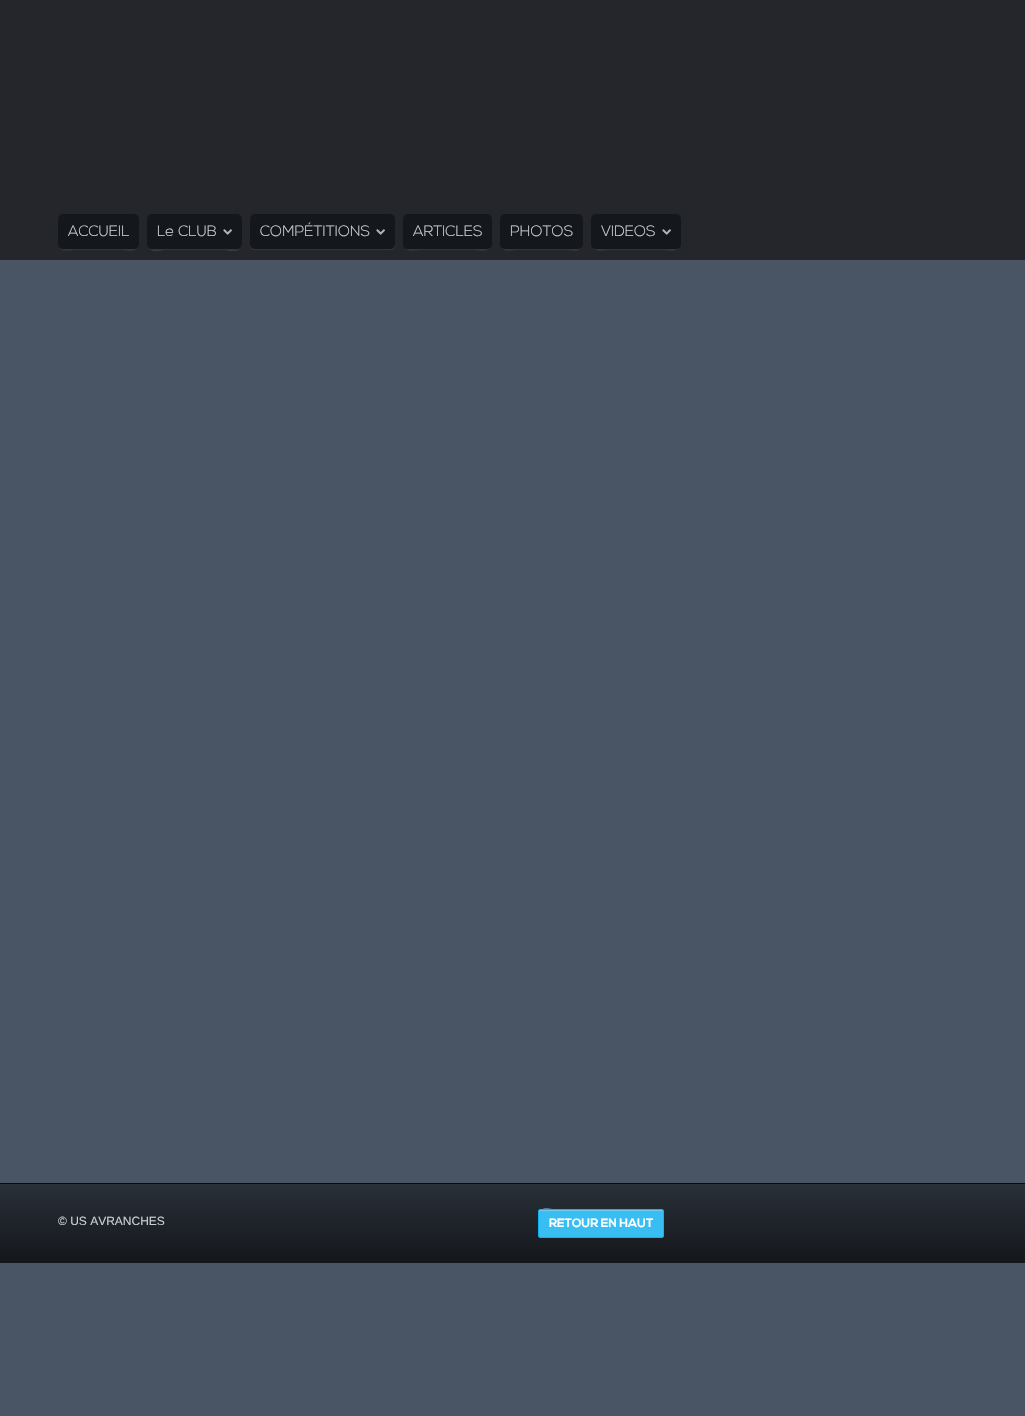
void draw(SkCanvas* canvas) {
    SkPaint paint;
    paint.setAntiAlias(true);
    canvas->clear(0xFF495565);
    paint.setColor(0xFF25262B);
    canvas->drawRect(SkRect::MakeXYWH(0, 0, 1025, 260), paint);
    paint.setColor(0xFF14171B);
    canvas->drawRoundRect(SkRect::MakeXYWH(58, 214, 81, 36), 5, 5, paint);
    paint.setColor(0x26E1E1E1);
    canvas->drawPath(SkPathBuilder().moveTo(58, 244).cubicTo(58, 253, 69, 250, 75, 250).lineTo(122, 250).cubicTo(128, 250, 139, 253, 139, 244).cubicTo(139, 247, 137, 249, 134, 249).lineTo(63, 249).cubicTo(60, 249, 58, 247, 58, 244).close().detach(), paint);
    SkFont font1(fontMgr->matchFamilyStyle("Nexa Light", SkFontStyle(300, SkFontStyle::kNormal_Width, SkFontStyle::kUpright_Slant)), 15);
    font1.setSubpixel(true);
    paint.setColor(0xFFCFCFCF);
    canvas->drawString("ACCUEIL", 68, 236, font1, paint);
    paint.setColor(0xFF14171B);
    canvas->drawRoundRect(SkRect::MakeXYWH(147, 214, 95, 36), 5, 5, paint);
    paint.setColor(0x26E1E1E1);
    canvas->drawPath(SkPathBuilder().moveTo(147, 244).cubicTo(147, 254, 161, 250, 166, 250).lineTo(223, 250).cubicTo(228, 250, 242, 254, 242, 244).cubicTo(242, 247, 240, 249, 237, 249).lineTo(152, 249).cubicTo(149, 249, 147, 247, 147, 244).close().detach(), paint);
    paint.setColor(0xFFCFCFCF);
    canvas->drawString("Le CLUB", 157, 236, font1, paint);
    canvas->drawImageRect(SkImages::DeferredFromEncodedData(SkData::MakeFromFileName("img1.png")), SkRect::MakeXYWH(223, 229, 9, 6), SkSamplingOptions());
    paint.setColor(0xFF14171B);
    canvas->drawRoundRect(SkRect::MakeXYWH(250, 214, 145, 36), 5, 5, paint);
    paint.setColor(0x26E1E1E1);
    canvas->drawPath(SkPathBuilder().moveTo(250, 244).lineTo(250, 245).cubicTo(250, 248, 252, 250, 255, 250).lineTo(390, 250).cubicTo(393, 250, 395, 248, 395, 245).lineTo(395, 244).cubicTo(395, 247, 393, 249, 390, 249).lineTo(255, 249).cubicTo(252, 249, 250, 247, 250, 244).close().detach(), paint);
    paint.setColor(0xFFCFCFCF);
    canvas->drawString("COMPÉTITIONS", 260, 236, font1, paint);
    canvas->drawImageRect(SkImages::DeferredFromEncodedData(SkData::MakeFromFileName("img1.png")), SkRect::MakeXYWH(376, 229, 9, 6), SkSamplingOptions());
    paint.setColor(0xFF14171B);
    canvas->drawRoundRect(SkRect::MakeXYWH(403, 214, 89, 36), 5, 5, paint);
    paint.setColor(0x26E1E1E1);
    canvas->drawPath(SkPathBuilder().moveTo(403, 244).cubicTo(403, 253, 416, 250, 421, 250).lineTo(474, 250).cubicTo(479, 250, 492, 253, 492, 244).cubicTo(492, 247, 490, 249, 487, 249).lineTo(408, 249).cubicTo(405, 249, 403, 247, 403, 244).close().detach(), paint);
    paint.setColor(0xFFCFCFCF);
    canvas->drawString("ARTICLES", 413, 236, font1, paint);
    paint.setColor(0xFF14171B);
    canvas->drawRoundRect(SkRect::MakeXYWH(500, 214, 83, 36), 5, 5, paint);
    paint.setColor(0x26E1E1E1);
    canvas->drawPath(SkPathBuilder().moveTo(500, 244).cubicTo(500, 253, 511, 250, 517, 250).lineTo(566, 250).cubicTo(572, 250, 583, 253, 583, 244).cubicTo(583, 247, 581, 249, 578, 249).lineTo(505, 249).cubicTo(502, 249, 500, 247, 500, 244).close().detach(), paint);
    paint.setColor(0xFFCFCFCF);
    canvas->drawString("PHOTOS", 510, 236, font1, paint);
    paint.setColor(0xFF14171B);
    canvas->drawRoundRect(SkRect::MakeXYWH(591, 214, 90, 36), 5, 5, paint);
    paint.setColor(0x26E1E1E1);
    canvas->drawPath(SkPathBuilder().moveTo(591, 244).cubicTo(591, 253, 604, 250, 609, 250).lineTo(663, 250).cubicTo(668, 250, 681, 253, 681, 244).cubicTo(681, 247, 679, 249, 676, 249).lineTo(596, 249).cubicTo(593, 249, 591, 247, 591, 244).close().detach(), paint);
    paint.setColor(0xFFCFCFCF);
    canvas->drawString("VIDEOS", 601, 236, font1, paint);
    canvas->drawImageRect(SkImages::DeferredFromEncodedData(SkData::MakeFromFileName("img1.png")), SkRect::MakeXYWH(662, 229, 9, 6), SkSamplingOptions());
    {
        const SkColor colors[] = {0xFF293039, 0xFF14171B};
        const float stops[] = {0, 1};
        const SkPoint ends[] = {{513, 1184}, {513, 1263}};
        paint.setShader(SkGradientShader::MakeLinear(ends, colors, stops, 2, SkTileMode::kClamp));
        paint.setAlpha(255);
    }
    canvas->drawRect(SkRect::MakeXYWH(0, 1184, 1025, 79), paint);
    paint.setShader(nullptr);
    paint.setColor(0xFF090A0C);
    canvas->drawRect(SkRect::MakeXYWH(0, 1183, 1025, 1), paint);
    SkFont font2(fontMgr->matchFamilyStyle("Liberation Sans", SkFontStyle::Normal()), 12);
    font2.setSubpixel(true);
    paint.setColor(0xFFCFCFCF);
    canvas->drawString("© US AVRANCHES", 58, 1225, font2, paint);
    paint.setColor(0xFF38BEF3);
    canvas->drawRoundRect(SkRect::MakeXYWH(538, 1209, 126, 29), 3, 3, paint);
    paint.setColor(0xFF73CAED);
    canvas->drawPath(SkPathBuilder().moveTo(541, 1211).lineTo(661, 1211).lineTo(663, 1212).lineTo(663, 1213).cubicTo(663, 1212, 663, 1211, 662, 1210).lineTo(561, 1210).cubicTo(555, 1210, 539, 1205, 539, 1213).cubicTo(539, 1212, 540, 1211, 541, 1211).close().detach(), paint);
    paint.setStyle(SkPaint::kStroke_Style);
    paint.setStrokeWidth(1);
    paint.setColor(0xFF12B1F1);
    canvas->drawRoundRect(SkRect::MakeXYWH(538.5f, 1209.5f, 125, 28), 2.5f, 2.5f, paint);
    SkFont font3(fontMgr->matchFamilyStyle("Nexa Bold", SkFontStyle::Bold()), 12);
    font3.setSubpixel(true);
    paint.setStyle(SkPaint::kFill_Style);
    paint.setColor(0xFFFFFFFF);
    canvas->drawString("RETOUR EN HAUT", 549, 1227, font3, paint);
}
